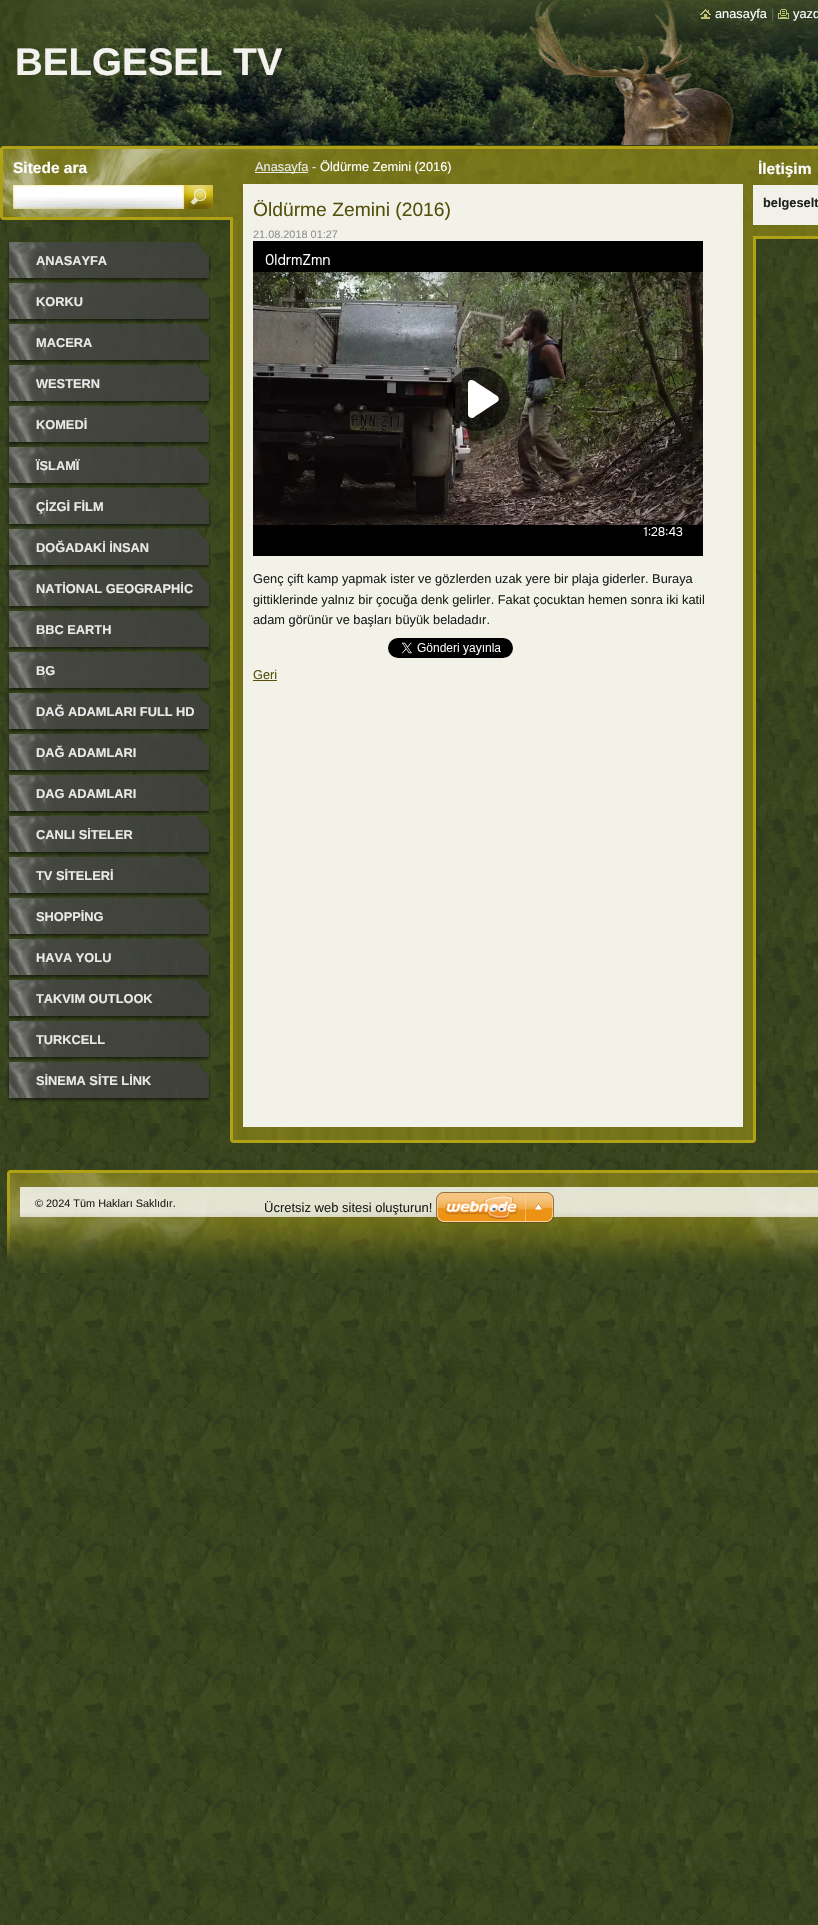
void draw(SkCanvas* canvas) {
    SkPaint paint;
    paint.setAntiAlias(true);
    canvas->clear(0xFFFFFFFF);
    canvas->drawImageRect(SkImages::DeferredFromEncodedData(SkData::MakeFromFileName("img1.png")), SkRect::MakeXYWH(0, 1273, 818, 652), SkSamplingOptions());
    canvas->drawImageRect(SkImages::DeferredFromEncodedData(SkData::MakeFromFileName("img2.png")), SkRect::MakeXYWH(0, 0, 818, 1273), SkSamplingOptions());
    canvas->drawImageRect(SkImages::DeferredFromEncodedData(SkData::MakeFromFileName("img5.png")), SkRect::MakeXYWH(3, 0, 815, 145), SkSamplingOptions());
    canvas->drawImageRect(SkImages::DeferredFromEncodedData(SkData::MakeFromFileName("img3.png")), SkRect::MakeXYWH(700, 9, 11, 10), SkSamplingOptions());
    SkFont font1(fontMgr->matchFamilyStyle("Liberation Sans", SkFontStyle::Normal()), 12.8f);
    font1.setSubpixel(true);
    paint.setColor(0xFFFFFFFF);
    canvas->drawString("anasayfa", 715, 18, font1, paint);
    paint.setColor(0xFF646464);
    canvas->drawString("|", 771, 18, font1, paint);
    canvas->drawImageRect(SkImages::DeferredFromEncodedData(SkData::MakeFromFileName("img4.png")), SkRect::MakeXYWH(778, 9, 11, 10), SkSamplingOptions());
    paint.setColor(0xFFFFFFFF);
    canvas->drawString("yazd", 793, 18, font1, paint);
    SkFont font2(fontMgr->matchFamilyStyle("Liberation Sans", SkFontStyle::Bold()), 38.5f);
    font2.setSubpixel(true);
    paint.setColor(0xFFF3F2EF);
    canvas->drawString("BELGESEL TV", 15, 75, font2, paint);
    canvas->drawImageRect(SkImages::DeferredFromEncodedData(SkData::MakeFromFileName("img6.png")), SkRect::MakeXYWH(0, 146, 818, 74), SkSamplingOptions());
    SkFont font3(fontMgr->matchFamilyStyle("Liberation Sans", SkFontStyle::Bold()), 15.5f);
    font3.setSubpixel(true);
    paint.setColor(0xFFFFFFFF);
    canvas->drawString("Sitede ara", 13, 173, font3, paint);
    canvas->drawImageRect(SkImages::DeferredFromEncodedData(SkData::MakeFromFileName("img7.png")), SkRect::MakeXYWH(13, 185, 171, 24), SkSamplingOptions());
    canvas->drawImageRect(SkImages::DeferredFromEncodedData(SkData::MakeFromFileName("img8.png")), SkRect::MakeXYWH(184, 185, 29, 24), SkSamplingOptions());
    canvas->drawImageRect(SkImages::DeferredFromEncodedData(SkData::MakeFromFileName("img9.png")), SkRect::MakeXYWH(230, 220, 526, 920), SkSamplingOptions());
    canvas->drawImageRect(SkImages::DeferredFromEncodedData(SkData::MakeFromFileName("img10.png")), SkRect::MakeXYWH(230, 146, 526, 74), SkSamplingOptions());
    paint.setColor(0xFFE9E9E9);
    canvas->drawRect(SkRect::MakeXYWH(255, 172, 53, 1), paint);
    canvas->drawString("Anasayfa -", 255, 171, font1, paint);
    paint.setColor(0xFFFFFFFF);
    canvas->drawString("Öldürme Zemini (2016)", 320, 171, font1, paint);
    paint.setColor(0xFFF2F2E9);
    canvas->drawRect(SkRect::MakeXYWH(243, 184, 500, 943), paint);
    SkFont font4(fontMgr->matchFamilyStyle("Liberation Sans", SkFontStyle::Normal()), 19.25f);
    font4.setSubpixel(true);
    paint.setColor(0xFF56500D);
    canvas->drawString("Öldürme Zemini (2016)", 253, 216, font4, paint);
    SkFont font5(fontMgr->matchFamilyStyle("Liberation Sans", SkFontStyle::Normal()), 10.9f);
    font5.setSubpixel(true);
    paint.setColor(0xFF919192);
    canvas->drawString("21.08.2018 01:27", 253, 238, font5, paint);
    canvas->drawImageRect(SkImages::DeferredFromEncodedData(SkData::MakeFromFileName("img11.png")), SkRect::MakeXYWH(253, 241, 450, 315), SkSamplingOptions());
    paint.setColor(0xFF1F221C);
    canvas->drawString("Genç çift kamp yapmak ister ve gözlerden uzak yere bir plaja giderler. Buraya", 253, 583, font1, paint);
    canvas->drawString("gittiklerinde yalnız bir çocuğa denk gelirler. Fakat çocuktan hemen sonra iki katil", 253, 604, font1, paint);
    canvas->drawString("adam görünür ve başları büyük beladadır.", 253, 624, font1, paint);
    canvas->drawImageRect(SkImages::DeferredFromEncodedData(SkData::MakeFromFileName("img12.png")), SkRect::MakeXYWH(388, 638, 125, 20), SkSamplingOptions());
    paint.setColor(0xFF56500D);
    canvas->drawString("Geri", 253, 679, font1, paint);
    canvas->drawRect(SkRect::MakeXYWH(253, 680, 24, 1), paint);
    canvas->drawImageRect(SkImages::DeferredFromEncodedData(SkData::MakeFromFileName("img13.png")), SkRect::MakeXYWH(230, 1140, 526, 3), SkSamplingOptions());
    paint.setColor(0xFFFFFFFF);
    canvas->drawString("İletişim", 758, 174, font3, paint);
    paint.setColor(0xFFF1F1E9);
    canvas->drawRect(SkRect::MakeXYWH(753, 185, 65, 40), paint);
    SkFont font6(fontMgr->matchFamilyStyle("Liberation Sans", SkFontStyle::Bold()), 12.8f);
    font6.setSubpixel(true);
    paint.setColor(0xFF1F221C);
    canvas->drawString("belgeselt", 763, 207, font6, paint);
    canvas->drawImageRect(SkImages::DeferredFromEncodedData(SkData::MakeFromFileName("img14.png")), SkRect::MakeXYWH(753, 225, 65, 14), SkSamplingOptions());
    canvas->drawImageRect(SkImages::DeferredFromEncodedData(SkData::MakeFromFileName("img15.png")), SkRect::MakeXYWH(7, 242, 204, 40), SkSamplingOptions());
    paint.setColor(0xFFE9E9E9);
    canvas->drawString("ANASAYFA", 36, 265, font6, paint);
    canvas->drawImageRect(SkImages::DeferredFromEncodedData(SkData::MakeFromFileName("img16.png")), SkRect::MakeXYWH(7, 283, 204, 40), SkSamplingOptions());
    canvas->drawString("KORKU", 36, 306, font6, paint);
    canvas->drawImageRect(SkImages::DeferredFromEncodedData(SkData::MakeFromFileName("img17.png")), SkRect::MakeXYWH(7, 324, 204, 40), SkSamplingOptions());
    canvas->drawString("MACERA", 36, 347, font6, paint);
    canvas->drawImageRect(SkImages::DeferredFromEncodedData(SkData::MakeFromFileName("img18.png")), SkRect::MakeXYWH(7, 365, 204, 40), SkSamplingOptions());
    canvas->drawString("WESTERN", 36, 388, font6, paint);
    canvas->drawImageRect(SkImages::DeferredFromEncodedData(SkData::MakeFromFileName("img19.png")), SkRect::MakeXYWH(7, 406, 204, 40), SkSamplingOptions());
    canvas->drawString("KOMEDİ", 36, 429, font6, paint);
    canvas->drawImageRect(SkImages::DeferredFromEncodedData(SkData::MakeFromFileName("img20.png")), SkRect::MakeXYWH(7, 447, 204, 40), SkSamplingOptions());
    canvas->drawString("ЇSLAMЇ", 36, 470, font6, paint);
    canvas->drawImageRect(SkImages::DeferredFromEncodedData(SkData::MakeFromFileName("img21.png")), SkRect::MakeXYWH(7, 488, 204, 40), SkSamplingOptions());
    canvas->drawString("ÇİZGİ FİLM", 36, 511, font6, paint);
    canvas->drawImageRect(SkImages::DeferredFromEncodedData(SkData::MakeFromFileName("img22.png")), SkRect::MakeXYWH(7, 529, 204, 40), SkSamplingOptions());
    canvas->drawString("DOĞADAKİ İNSAN", 36, 552, font6, paint);
    canvas->drawImageRect(SkImages::DeferredFromEncodedData(SkData::MakeFromFileName("img23.png")), SkRect::MakeXYWH(7, 570, 204, 40), SkSamplingOptions());
    canvas->drawString("NATİONAL GEOGRAPHİC", 36, 593, font6, paint);
    canvas->drawImageRect(SkImages::DeferredFromEncodedData(SkData::MakeFromFileName("img24.png")), SkRect::MakeXYWH(7, 611, 204, 40), SkSamplingOptions());
    canvas->drawString("BBC EARTH", 36, 634, font6, paint);
    canvas->drawImageRect(SkImages::DeferredFromEncodedData(SkData::MakeFromFileName("img25.png")), SkRect::MakeXYWH(7, 652, 204, 40), SkSamplingOptions());
    canvas->drawString("BG", 36, 675, font6, paint);
    canvas->drawImageRect(SkImages::DeferredFromEncodedData(SkData::MakeFromFileName("img26.png")), SkRect::MakeXYWH(7, 693, 204, 40), SkSamplingOptions());
    canvas->drawString("DAĞ ADAMLARI FULL HD", 36, 716, font6, paint);
    canvas->drawImageRect(SkImages::DeferredFromEncodedData(SkData::MakeFromFileName("img27.png")), SkRect::MakeXYWH(7, 734, 204, 40), SkSamplingOptions());
    canvas->drawString("DAĞ ADAMLARI", 36, 757, font6, paint);
    canvas->drawImageRect(SkImages::DeferredFromEncodedData(SkData::MakeFromFileName("img28.png")), SkRect::MakeXYWH(7, 775, 204, 40), SkSamplingOptions());
    canvas->drawString("DAG ADAMLARI", 36, 798, font6, paint);
    canvas->drawImageRect(SkImages::DeferredFromEncodedData(SkData::MakeFromFileName("img29.png")), SkRect::MakeXYWH(7, 816, 204, 40), SkSamplingOptions());
    canvas->drawString("CANLI SİTELER", 36, 839, font6, paint);
    canvas->drawImageRect(SkImages::DeferredFromEncodedData(SkData::MakeFromFileName("img30.png")), SkRect::MakeXYWH(7, 857, 204, 40), SkSamplingOptions());
    canvas->drawString("TV SİTELERİ", 36, 880, font6, paint);
    canvas->drawImageRect(SkImages::DeferredFromEncodedData(SkData::MakeFromFileName("img31.png")), SkRect::MakeXYWH(7, 898, 204, 40), SkSamplingOptions());
    canvas->drawString("SHOPPİNG", 36, 921, font6, paint);
    canvas->drawImageRect(SkImages::DeferredFromEncodedData(SkData::MakeFromFileName("img32.png")), SkRect::MakeXYWH(7, 939, 204, 40), SkSamplingOptions());
    canvas->drawString("HAVA YOLU", 36, 962, font6, paint);
    canvas->drawImageRect(SkImages::DeferredFromEncodedData(SkData::MakeFromFileName("img33.png")), SkRect::MakeXYWH(7, 980, 204, 40), SkSamplingOptions());
    canvas->drawString("TAKVIM OUTLOOK", 36, 1003, font6, paint);
    canvas->drawImageRect(SkImages::DeferredFromEncodedData(SkData::MakeFromFileName("img34.png")), SkRect::MakeXYWH(7, 1021, 204, 40), SkSamplingOptions());
    canvas->drawString("TURKCELL", 36, 1044, font6, paint);
    canvas->drawImageRect(SkImages::DeferredFromEncodedData(SkData::MakeFromFileName("img35.png")), SkRect::MakeXYWH(7, 1062, 204, 40), SkSamplingOptions());
    canvas->drawString("SİNEMA SİTE LİNK", 36, 1085, font6, paint);
    canvas->drawImageRect(SkImages::DeferredFromEncodedData(SkData::MakeFromFileName("img36.png")), SkRect::MakeXYWH(7, 1170, 811, 103), SkSamplingOptions());
    paint.setColor(0xFF1F221C);
    canvas->drawString("© 2024 Tüm Hakları Saklıdır.", 35, 1207, font5, paint);
    SkFont font7(fontMgr->matchFamilyStyle("Liberation Sans", SkFontStyle::Normal()), 13);
    font7.setSubpixel(true);
    canvas->drawString("Ücretsiz web sitesi oluşturun!", 264, 1212, font7, paint);
    canvas->drawImageRect(SkImages::DeferredFromEncodedData(SkData::MakeFromFileName("img37.png")), SkRect::MakeXYWH(436, 1192, 118, 31), SkSamplingOptions());
}
